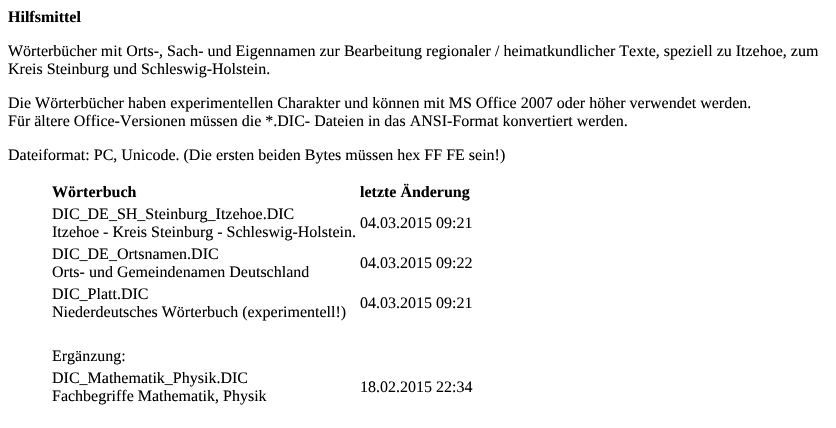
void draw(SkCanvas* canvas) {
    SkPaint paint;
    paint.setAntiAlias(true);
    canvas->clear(0xFFFFFFFF);
    SkFont font1(fontMgr->matchFamilyStyle("Liberation Serif", SkFontStyle::Bold()), 16);
    font1.setSubpixel(true);
    paint.setColor(0xFF000000);
    canvas->drawString("Hilfsmittel", 8, 22, font1, paint);
    SkFont font2(fontMgr->matchFamilyStyle("Liberation Serif", SkFontStyle::Normal()), 16);
    font2.setSubpixel(true);
    canvas->drawString("Wörterbücher mit Orts-, Sach- und Eigennamen zur Bearbeitung regionaler / heimatkundlicher Texte, speziell zu Itzehoe, zum", 8, 56, font2, paint);
    canvas->drawString("Kreis Steinburg und Schleswig-Holstein.", 8, 74, font2, paint);
    canvas->drawString("Die Wörterbücher haben experimentellen Charakter und können mit MS Office 2007 oder höher verwendet werden.", 8, 108, font2, paint);
    canvas->drawString("Für ältere Office-Versionen müssen die *.DIC- Dateien in das ANSI-Format konvertiert werden.", 8, 126, font2, paint);
    canvas->drawString("Dateiformat: PC, Unicode. (Die ersten beiden Bytes müssen hex FF FE sein!)", 8, 160, font2, paint);
    canvas->drawString("Wörterbuch", 52, 197, font1, paint);
    canvas->drawString("letzte Änderung", 360, 197, font1, paint);
    canvas->drawString("DIC_DE_SH_Steinburg_Itzehoe.DIC", 52, 219, font2, paint);
    canvas->drawString("Itzehoe - Kreis Steinburg - Schleswig-Holstein.", 52, 237, font2, paint);
    canvas->drawString("04.03.2015 09:21", 360, 228, font2, paint);
    canvas->drawString("DIC_DE_Ortsnamen.DIC", 52, 259, font2, paint);
    canvas->drawString("Orts- und Gemeindenamen Deutschland", 52, 277, font2, paint);
    canvas->drawString("04.03.2015 09:22", 360, 268, font2, paint);
    canvas->drawString("DIC_Platt.DIC", 52, 299, font2, paint);
    canvas->drawString("Niederdeutsches Wörterbuch (experimentell!)", 52, 317, font2, paint);
    canvas->drawString("04.03.2015 09:21", 360, 308, font2, paint);
    canvas->drawString("Ergänzung:", 52, 361, font2, paint);
    canvas->drawString("DIC_Mathematik_Physik.DIC", 52, 383, font2, paint);
    canvas->drawString("Fachbegriffe Mathematik, Physik", 52, 401, font2, paint);
    canvas->drawString("18.02.2015 22:34", 360, 392, font2, paint);
}
